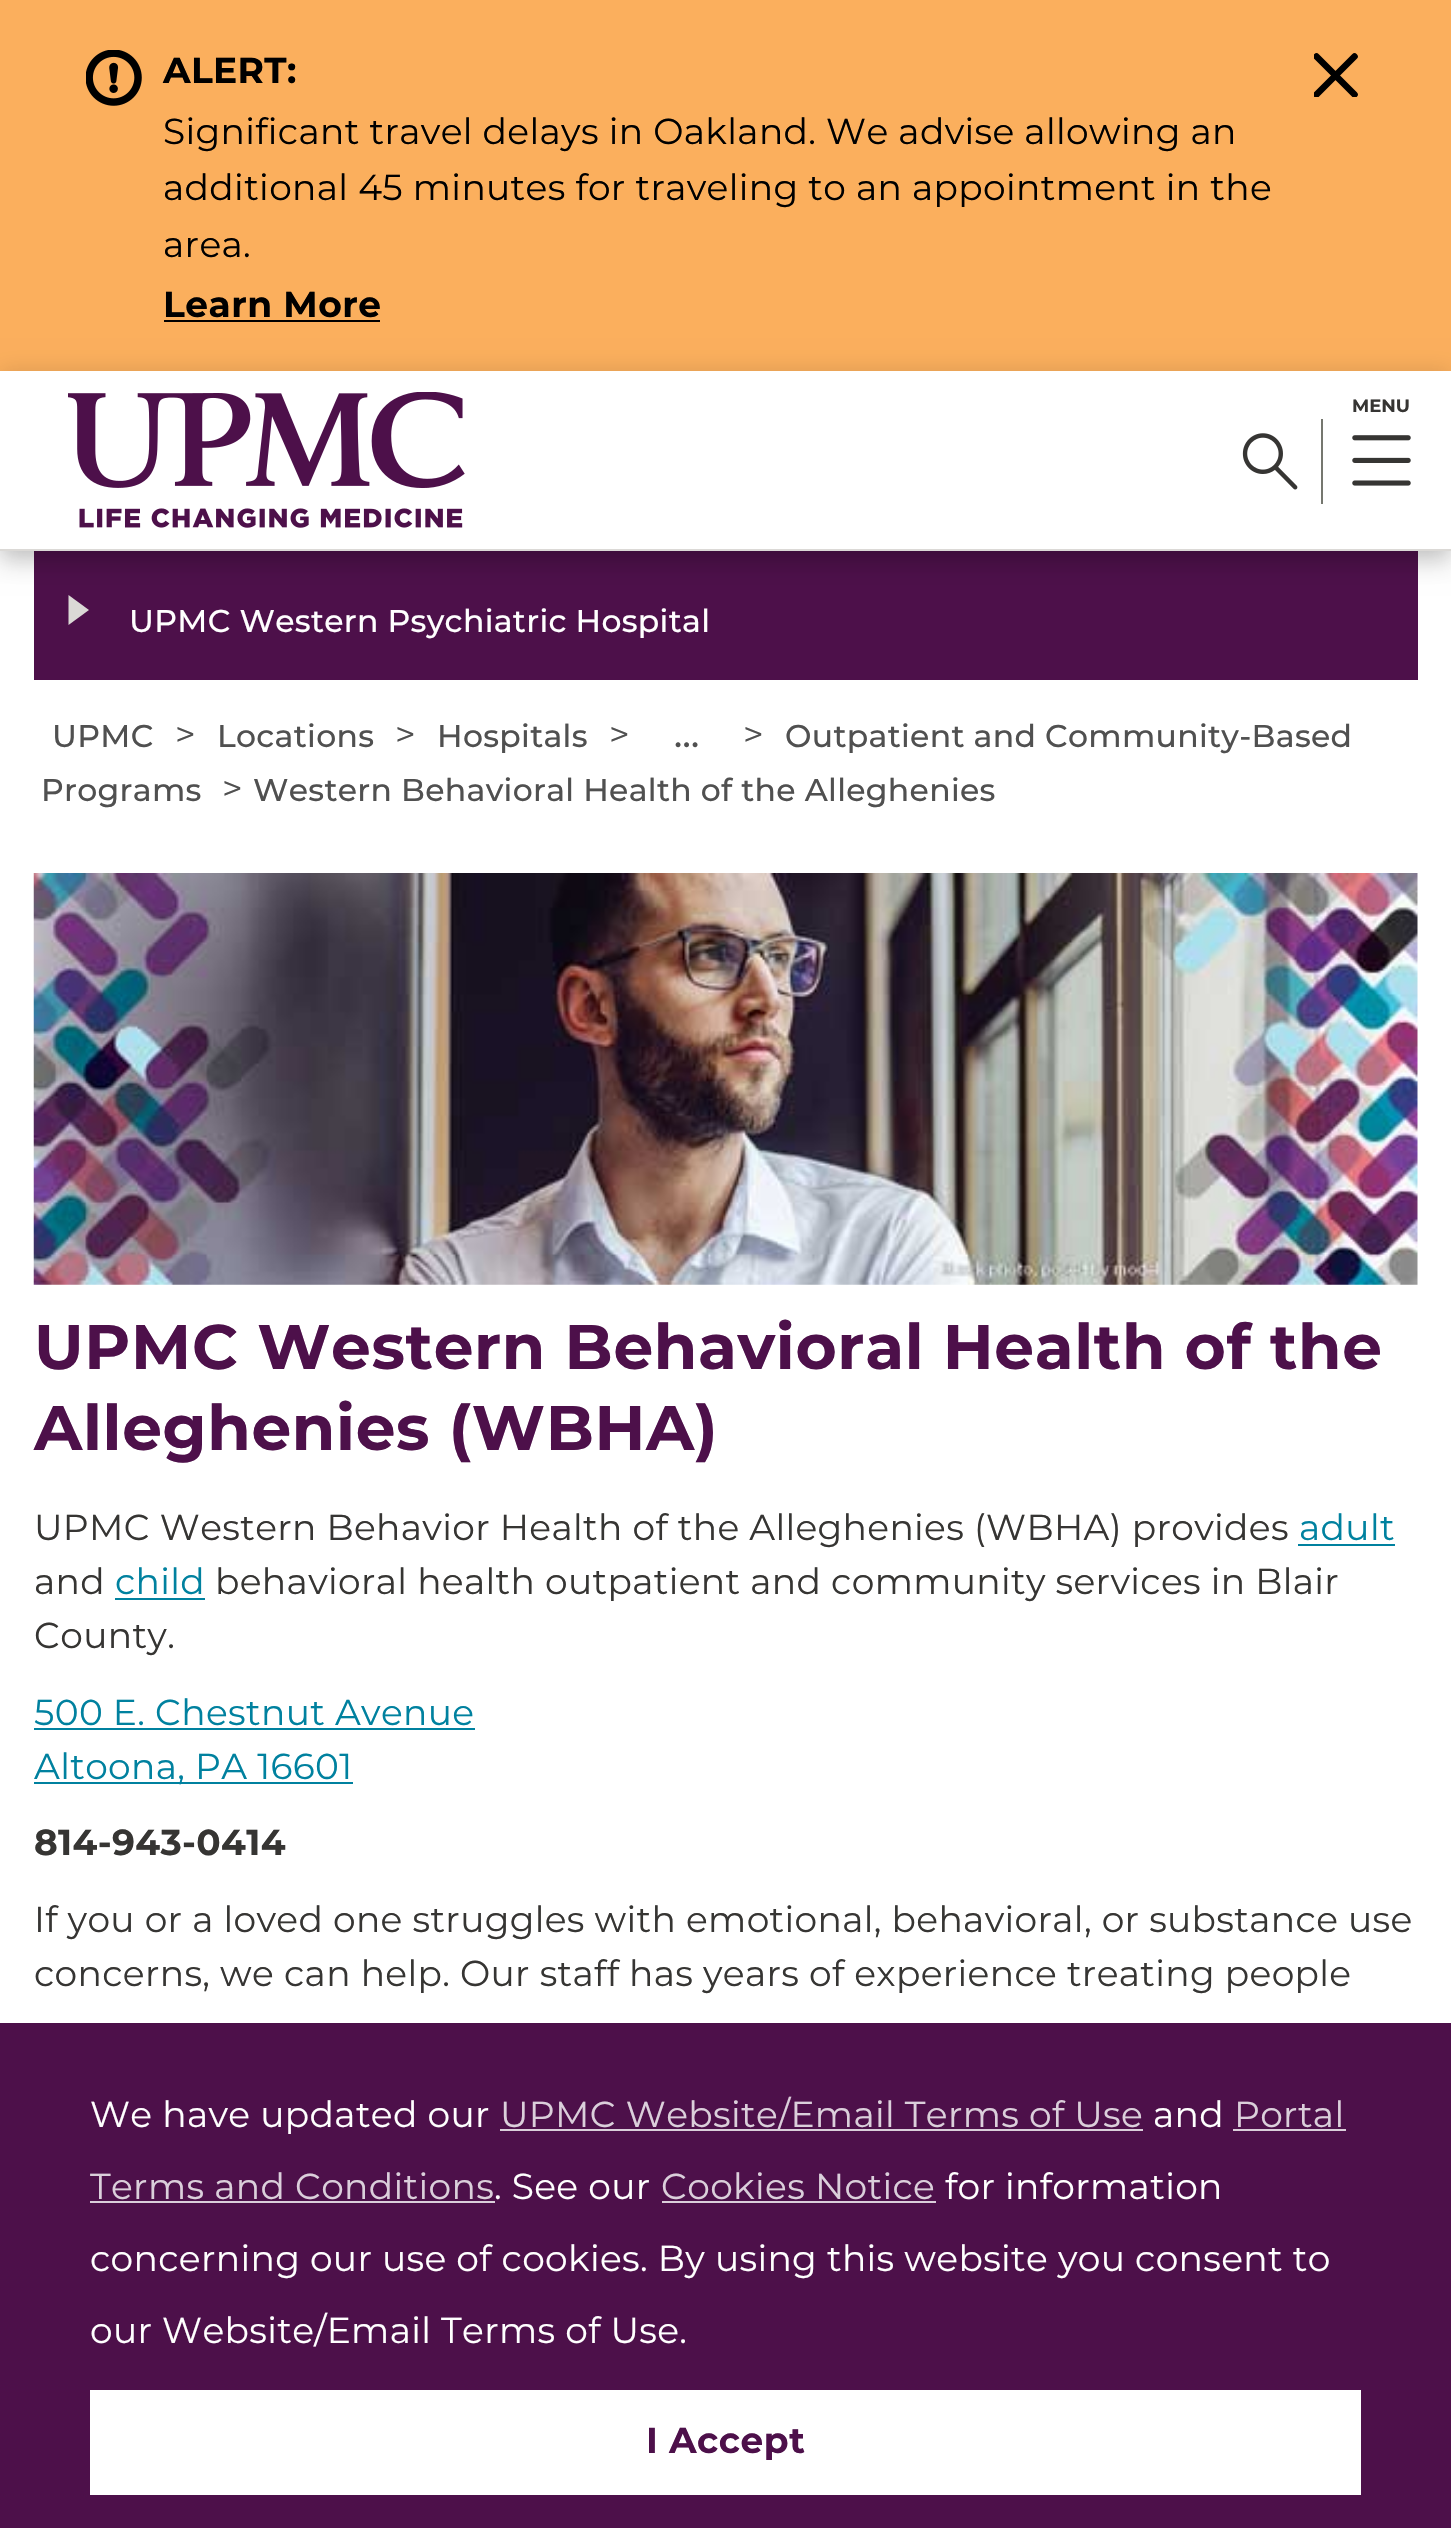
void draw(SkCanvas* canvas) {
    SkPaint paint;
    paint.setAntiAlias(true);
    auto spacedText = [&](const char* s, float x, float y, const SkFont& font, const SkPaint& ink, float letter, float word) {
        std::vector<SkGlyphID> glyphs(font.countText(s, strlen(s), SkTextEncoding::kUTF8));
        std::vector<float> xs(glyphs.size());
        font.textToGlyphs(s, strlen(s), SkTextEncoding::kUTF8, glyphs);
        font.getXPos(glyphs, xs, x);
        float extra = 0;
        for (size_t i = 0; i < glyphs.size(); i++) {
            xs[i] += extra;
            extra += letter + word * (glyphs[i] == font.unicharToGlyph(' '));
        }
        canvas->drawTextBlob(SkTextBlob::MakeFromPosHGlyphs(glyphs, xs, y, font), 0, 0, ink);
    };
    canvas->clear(0xFFFFFFFF);
    paint.setColor(0xFF4D104A);
    canvas->drawRect(SkRect::MakeXYWH(34, 551, 1384, 129), paint);
    paint.setColor(0xFFDBD9D6);
    canvas->drawPath(SkPathBuilder().moveTo(89, 610).lineTo(68.5f, 625).lineTo(68.5f, 595).close().detach(), paint);
    paint.setColor(0x29000000);
    paint.setMaskFilter(SkMaskFilter::MakeBlur(kNormal_SkBlurStyle, 11));
    canvas->drawRect(SkRect::MakeXYWH(0, 11, 1451, 552), paint);
    paint.setMaskFilter(nullptr);
    paint.setColor(0xFFFBAF5D);
    canvas->drawRect(SkRect::MakeXYWH(0, 0, 1451, 371), paint);
    canvas->drawImageRect(SkImages::DeferredFromEncodedData(SkData::MakeFromFileName("img1.png")), SkRect::MakeXYWH(86, 50, 56, 56), SkSamplingOptions());
    SkFont font1(fontMgr->matchFamilyStyle("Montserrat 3", SkFontStyle(100, SkFontStyle::kNormal_Width, SkFontStyle::kUpright_Slant)), 36);
    font1.setSubpixel(true);
    paint.setColor(0xFF000000);
    spacedText("ALERT:", 163, 83, font1, paint, 0.35f, 0);
    canvas->save();
    canvas->clipRect(SkRect::MakeXYWH(1314, 52, 45, 45));
    paint.setStyle(SkPaint::kStroke_Style);
    paint.setStrokeWidth(6.6f);
    paint.setStrokeCap(SkPaint::kRound_Cap);
    canvas->drawPath(SkPathBuilder().moveTo(1316.5f, 56.5f).lineTo(1354.5f, 94.5f).moveTo(1316.5f, 94.5f).lineTo(1354.5f, 56.5f).detach(), paint);
    canvas->restore();
    SkFont font2(fontMgr->matchFamilyStyle("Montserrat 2", SkFontStyle(100, SkFontStyle::kNormal_Width, SkFontStyle::kUpright_Slant)), 36);
    font2.setSubpixel(true);
    paint.setStyle(SkPaint::kFill_Style);
    spacedText("Significant travel delays in Oakland. We advise allowing an", 163, 144, font2, paint, 0.35f, 0);
    spacedText("additional 45 minutes for traveling to an appointment in the", 163, 200, font2, paint, 0.35f, 0);
    spacedText("area.", 163, 257, font2, paint, 0.35f, 0);
    spacedText("Learn More", 163, 317, font1, paint, 0.5f, 0);
    canvas->drawRect(SkRect::MakeXYWH(164, 320, 216, 2), paint);
    paint.setColor(0x21000000);
    paint.setMaskFilter(SkMaskFilter::MakeBlur(kNormal_SkBlurStyle, 11));
    canvas->drawRect(SkRect::MakeXYWH(0, 371, 1451, 180), paint);
    paint.setMaskFilter(nullptr);
    paint.setColor(0xFFFFFFFF);
    canvas->drawRect(SkRect::MakeXYWH(0, 371, 1451, 178), paint);
    paint.setColor(0xFFDBD9D6);
    canvas->drawRect(SkRect::MakeXYWH(0, 549, 1451, 2), paint);
    canvas->drawImageRect(SkImages::DeferredFromEncodedData(SkData::MakeFromFileName("img2.png")), SkRect::MakeXYWH(68, 392, 397, 136), SkSamplingOptions());
    SkFont font3(fontMgr->matchFamilyStyle("Montserrat 3", SkFontStyle(100, SkFontStyle::kNormal_Width, SkFontStyle::kUpright_Slant)), 18);
    font3.setSubpixel(true);
    paint.setColor(0xFF363533);
    canvas->drawString("MENU", 1352, 412, font3, paint);
    canvas->drawImageRect(SkImages::DeferredFromEncodedData(SkData::MakeFromFileName("img3.png")), SkRect::MakeXYWH(1352, 435, 59, 51), SkSamplingOptions());
    paint.setColor(0xFF75776F);
    canvas->drawRect(SkRect::MakeXYWH(1321, 419, 2, 85), paint);
    canvas->drawImageRect(SkImages::DeferredFromEncodedData(SkData::MakeFromFileName("img4.png")), SkRect::MakeXYWH(1242, 433, 56, 57), SkSamplingOptions());
    SkFont font4(fontMgr->matchFamilyStyle("Montserrat", SkFontStyle(100, SkFontStyle::kNormal_Width, SkFontStyle::kUpright_Slant)), 31.5f);
    font4.setSubpixel(true);
    paint.setColor(0xFFFFFFFF);
    spacedText("UPMC Western Psychiatric Hospital", 129, 632, font4, paint, 0.3f, 0);
    paint.setColor(0xFF505050);
    spacedText("UPMC", 52, 747, font4, paint, 0.3f, 0);
    spacedText(">", 175, 747, font2, paint, 0.35f, 0);
    spacedText("Locations", 217, 747, font4, paint, 0.3f, 0);
    spacedText(">", 395, 747, font2, paint, 0.35f, 0);
    spacedText("Hospitals", 437, 747, font4, paint, 0.3f, 0);
    spacedText(">", 609, 747, font2, paint, 0.35f, 0);
    spacedText(">", 743, 747, font2, paint, 0.35f, 0);
    spacedText("Outpatient and Community-Based", 785, 747, font4, paint, 0.3f, 0);
    SkFont font5(fontMgr->matchFamilyStyle("Montserrat", SkFontStyle(100, SkFontStyle::kNormal_Width, SkFontStyle::kUpright_Slant)), 36);
    font5.setSubpixel(true);
    spacedText("...", 674, 747, font5, paint, 0.35f, 0);
    spacedText("Programs", 41, 801, font4, paint, 0.3f, 0);
    spacedText(">", 222, 801, font2, paint, 0.35f, 0);
    spacedText("Western Behavioral Health of the Alleghenies", 253, 801, font4, paint, 0.3f, 0);
    canvas->drawImageRect(SkImages::DeferredFromEncodedData(SkData::MakeFromFileName("img5.png")), SkRect::MakeXYWH(33, 873, 1385, 412), SkSamplingOptions());
    SkFont font6(fontMgr->matchFamilyStyle("Montserrat 3", SkFontStyle(100, SkFontStyle::kNormal_Width, SkFontStyle::kUpright_Slant)), 63);
    font6.setSubpixel(true);
    paint.setColor(0xFF4D104A);
    spacedText("UPMC Western Behavioral Health of the", 34, 1369, font6, paint, 0.65f, 0);
    spacedText("Alleghenies (WBHA)", 34, 1450, font6, paint, 0.65f, 0);
    paint.setColor(0xFF363533);
    spacedText("UPMC Western Behavior Health of the Alleghenies (WBHA) provides", 34, 1540, font2, paint, 0.35f, 0);
    paint.setColor(0xFF00819F);
    spacedText("adult", 1299, 1540, font2, paint, 0.35f, 0);
    canvas->drawRect(SkRect::MakeXYWH(1298, 1544, 97, 2), paint);
    paint.setColor(0xFF363533);
    spacedText("and", 34, 1594, font2, paint, 0.35f, 0);
    paint.setColor(0xFF00819F);
    spacedText("child", 115, 1594, font2, paint, 0.35f, 0);
    canvas->drawRect(SkRect::MakeXYWH(115, 1598, 90, 2), paint);
    paint.setColor(0xFF363533);
    spacedText("behavioral health outpatient and community services in Blair", 215, 1594, font2, paint, 0.35f, 0);
    spacedText("County.", 34, 1648, font2, paint, 0.35f, 0);
    paint.setColor(0xFF00819F);
    spacedText("500 E. Chestnut Avenue", 34, 1725, font2, paint, 0.35f, 0);
    canvas->drawRect(SkRect::MakeXYWH(34, 1728, 441, 2), paint);
    canvas->drawRect(SkRect::MakeXYWH(34, 1782, 319, 2), paint);
    spacedText("Altoona, PA 16601", 34, 1779, font2, paint, 0.35f, 0);
    paint.setColor(0xFF363533);
    spacedText("814-943-0414", 34, 1855, font1, paint, 0.35f, 0);
    spacedText("If you or a loved one struggles with emotional, behavioral, or substance use", 34, 1932, font2, paint, 0.35f, 0);
    spacedText("concerns, we can help. Our staff has years of experience treating people", 34, 1986, font2, paint, 0.35f, 0);
    paint.setColor(0xFF4D104A);
    canvas->drawRect(SkRect::MakeXYWH(0, 2023, 1451, 505), paint);
    paint.setColor(0xFFFFFFFF);
    spacedText("We have updated our", 90, 2127, font2, paint, 0.35f, 0);
    paint.setColor(0xFFDBCFDB);
    canvas->drawRect(SkRect::MakeXYWH(500, 2129, 643, 2), paint);
    spacedText("UPMC Website/Email Terms of Use", 500, 2127, font2, paint, 0.35f, 0);
    paint.setColor(0xFFFFFFFF);
    spacedText("and", 1153, 2127, font2, paint, 0.35f, 0);
    paint.setColor(0xFFDBCFDB);
    spacedText("Portal", 1234, 2127, font2, paint, 0.35f, 0);
    canvas->drawRect(SkRect::MakeXYWH(1233, 2129, 113, 2), paint);
    spacedText("Terms and Conditions", 90, 2199, font2, paint, 0.35f, 0);
    canvas->drawRect(SkRect::MakeXYWH(90, 2201, 405, 2), paint);
    paint.setColor(0xFFFFFFFF);
    spacedText(". See our", 494, 2199, font2, paint, 0.35f, 0);
    paint.setColor(0xFFDBCFDB);
    spacedText("Cookies Notice", 661, 2199, font2, paint, 0.35f, 0);
    canvas->drawRect(SkRect::MakeXYWH(662, 2201, 274, 2), paint);
    paint.setColor(0xFFFFFFFF);
    spacedText("for information", 945, 2199, font2, paint, 0.35f, 0);
    spacedText("concerning our use of cookies. By using this website you consent to", 90, 2271, font2, paint, 0.35f, 0);
    spacedText("our Website/Email Terms of Use.", 90, 2343, font2, paint, 0.35f, 0);
    canvas->drawRect(SkRect::MakeXYWH(90, 2390, 1271, 105), paint);
    paint.setColor(0xFF4D104A);
    spacedText("I Accept", 646, 2453, font1, paint, 0.5f, 0);
}
